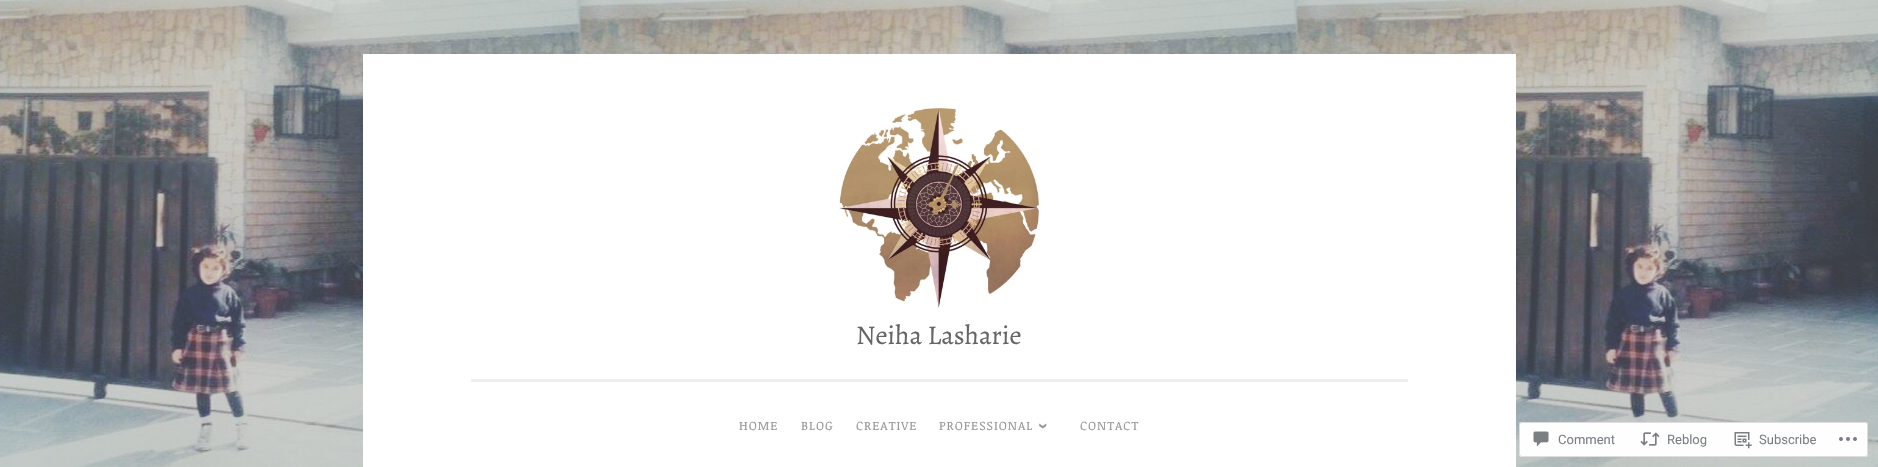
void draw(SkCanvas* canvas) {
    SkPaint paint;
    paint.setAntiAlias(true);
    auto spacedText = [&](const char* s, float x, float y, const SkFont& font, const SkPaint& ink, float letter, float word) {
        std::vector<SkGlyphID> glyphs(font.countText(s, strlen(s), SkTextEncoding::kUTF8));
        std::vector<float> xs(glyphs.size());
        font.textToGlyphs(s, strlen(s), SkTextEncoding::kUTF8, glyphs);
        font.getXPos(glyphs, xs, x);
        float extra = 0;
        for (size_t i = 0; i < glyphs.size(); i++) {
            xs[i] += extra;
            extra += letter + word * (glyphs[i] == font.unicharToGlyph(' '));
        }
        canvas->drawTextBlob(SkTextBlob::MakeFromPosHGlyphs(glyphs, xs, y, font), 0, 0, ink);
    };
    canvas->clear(0xFFFFFFFF);
    canvas->drawImageRect(SkImages::DeferredFromEncodedData(SkData::MakeFromFileName("img1.png")), SkRect::MakeXYWH(0, 0, 1878, 467), SkSamplingOptions());
    paint.setColor(0xFFFFFFFF);
    canvas->drawRect(SkRect::MakeXYWH(363, 54, 1153, 413), paint);
    canvas->drawImageRect(SkImages::DeferredFromEncodedData(SkData::MakeFromFileName("img2.png")), SkRect::MakeXYWH(839, 108, 200, 200), SkSamplingOptions());
    SkFont font1(fontMgr->matchFamilyStyle("Alegreya", SkFontStyle::Normal()), 27);
    font1.setSubpixel(true);
    paint.setColor(0xFF666666);
    canvas->drawString("Neiha Lasharie", 856, 344, font1, paint);
    paint.setColor(0xFFEEEEEE);
    canvas->drawRect(SkRect::MakeXYWH(471, 379, 937, 3), paint);
    SkFont font2(fontMgr->matchFamilyStyle("Noticia Text", SkFontStyle::Normal()), 12.25f);
    font2.setSubpixel(true);
    paint.setColor(0xFF999999);
    spacedText("HOME", 739, 430, font2, paint, 1, 0);
    spacedText("BLOG", 801, 430, font2, paint, 1, 0);
    spacedText("CREATIVE", 856, 430, font2, paint, 1, 0);
    spacedText("PROFESSIONAL", 939, 430, font2, paint, 1, 0);
    SkFont font3(fontMgr->matchFamilyStyle("Liberation Sans", SkFontStyle::Bold()), 18);
    font3.setSubpixel(true);
    canvas->save();
    canvas->rotate(90, 1038, 423);
    spacedText("›", 1038, 423, font3, paint, 1, 0);
    canvas->restore();
    spacedText("CONTACT", 1080, 430, font2, paint, 1, 0);
    paint.setColor(0xFAFFFFFF);
    canvas->drawRoundRect(SkRect::MakeXYWH(1519, 422, 349, 35), 3, 3, paint);
    paint.setStyle(SkPaint::kStroke_Style);
    paint.setStrokeWidth(1);
    paint.setColor(0xFADCDCDE);
    canvas->drawRoundRect(SkRect::MakeXYWH(1519.5f, 422.5f, 348, 34), 2.5f, 2.5f, paint);
    canvas->drawImageRect(SkImages::DeferredFromEncodedData(SkData::MakeFromFileName("img3.png")), SkRect::MakeXYWH(1533, 431, 16, 16), SkSamplingOptions());
    SkFont font4(fontMgr->matchFamilyStyle("Roboto", SkFontStyle::Normal()), 13);
    font4.setSubpixel(true);
    paint.setStyle(SkPaint::kFill_Style);
    paint.setColor(0xFF7B7F84);
    canvas->drawString("Comment", 1558, 444, font4, paint);
    canvas->drawImageRect(SkImages::DeferredFromEncodedData(SkData::MakeFromFileName("img4.png")), SkRect::MakeXYWH(1640, 432, 20, 14), SkSamplingOptions());
    canvas->drawString("Reblog", 1667, 444, font4, paint);
    canvas->drawImageRect(SkImages::DeferredFromEncodedData(SkData::MakeFromFileName("img5.png")), SkRect::MakeXYWH(1734, 432, 18, 17), SkSamplingOptions());
    canvas->drawString("Subscribe", 1759, 444, font4, paint);
    canvas->drawImageRect(SkImages::DeferredFromEncodedData(SkData::MakeFromFileName("img6.png")), SkRect::MakeXYWH(1839, 437, 18, 4), SkSamplingOptions());
}
